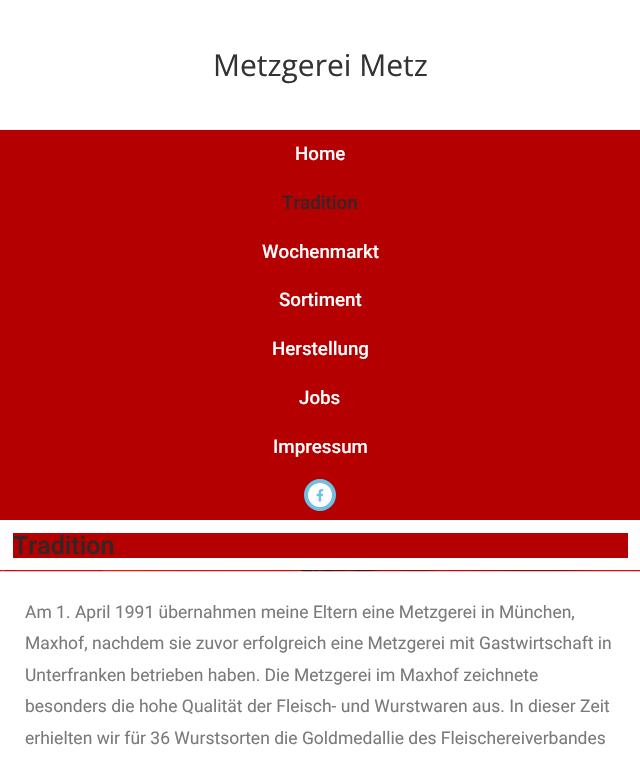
void draw(SkCanvas* canvas) {
    SkPaint paint;
    paint.setAntiAlias(true);
    canvas->clear(0xFFFFFFFF);
    paint.setColor(0xFFF1F1F1);
    canvas->drawRect(SkRect::MakeXYWH(0, 129, 640, 1), paint);
    SkFont font1(fontMgr->matchFamilyStyle("Open Sans", SkFontStyle::Normal()), 30);
    font1.setSubpixel(true);
    paint.setColor(0xFF333333);
    canvas->drawString("Metzgerei Metz", 213, 76, font1, paint);
    paint.setColor(0xFFB40000);
    canvas->drawRect(SkRect::MakeXYWH(0, 130, 640, 390), paint);
    SkFont font2(fontMgr->matchFamilyStyle("Roboto", SkFontStyle(500, SkFontStyle::kNormal_Width, SkFontStyle::kUpright_Slant)), 18.75f);
    font2.setSubpixel(true);
    paint.setColor(0xFFFFFFFF);
    canvas->drawString("Home", 295, 160, font2, paint);
    paint.setColor(0xFF362525);
    canvas->drawString("Tradition", 282, 209, font2, paint);
    paint.setColor(0xFFFFFFFF);
    canvas->drawString("Wochenmarkt", 262, 258, font2, paint);
    canvas->drawString("Sortiment", 279, 306, font2, paint);
    canvas->drawString("Herstellung", 272, 355, font2, paint);
    canvas->drawString("Jobs", 299, 404, font2, paint);
    canvas->drawString("Impressum", 273, 453, font2, paint);
    canvas->drawCircle(320, 495, 14, paint);
    paint.setStyle(SkPaint::kStroke_Style);
    paint.setStrokeWidth(4);
    paint.setColor(0xFF6EC1E4);
    canvas->drawCircle(320, 495, 14, paint);
    canvas->drawImageRect(SkImages::DeferredFromEncodedData(SkData::MakeFromFileName("img1.png")), SkRect::MakeXYWH(316, 489, 8, 13), SkSamplingOptions());
    paint.setStyle(SkPaint::kFill_Style);
    paint.setColor(0xFFB40000);
    canvas->drawRect(SkRect::MakeXYWH(13, 533, 615, 25), paint);
    SkFont font3(fontMgr->matchFamilyStyle("Roboto", SkFontStyle(600, SkFontStyle::kNormal_Width, SkFontStyle::kUpright_Slant)), 25);
    font3.setSubpixel(true);
    paint.setColor(0xFF362525);
    canvas->drawString("Tradition", 13, 554, font3, paint);
    canvas->drawImageRect(SkImages::DeferredFromEncodedData(SkData::MakeFromFileName("img2.png")), SkRect::MakeXYWH(0, 570, 640, 2), SkSamplingOptions());
    SkFont font4(fontMgr->matchFamilyStyle("Roboto", SkFontStyle::Normal()), 17.5f);
    font4.setSubpixel(true);
    paint.setColor(0xFF7A7A7A);
    canvas->drawString("Am 1. April 1991 übernahmen meine Eltern eine Metzgerei in München,", 25, 618, font4, paint);
    canvas->drawString("Maxhof, nachdem sie zuvor erfolgreich eine Metzgerei mit Gastwirtschaft in", 25, 649, font4, paint);
    canvas->drawString("Unterfranken betrieben haben. Die Metzgerei im Maxhof zeichnete", 25, 681, font4, paint);
    canvas->drawString("besonders die hohe Qualität der Fleisch- und Wurstwaren aus. In dieser Zeit", 25, 712, font4, paint);
    canvas->drawString("erhielten wir für 36 Wurstsorten die Goldmedallie des Fleischereiverbandes", 25, 744, font4, paint);
}
